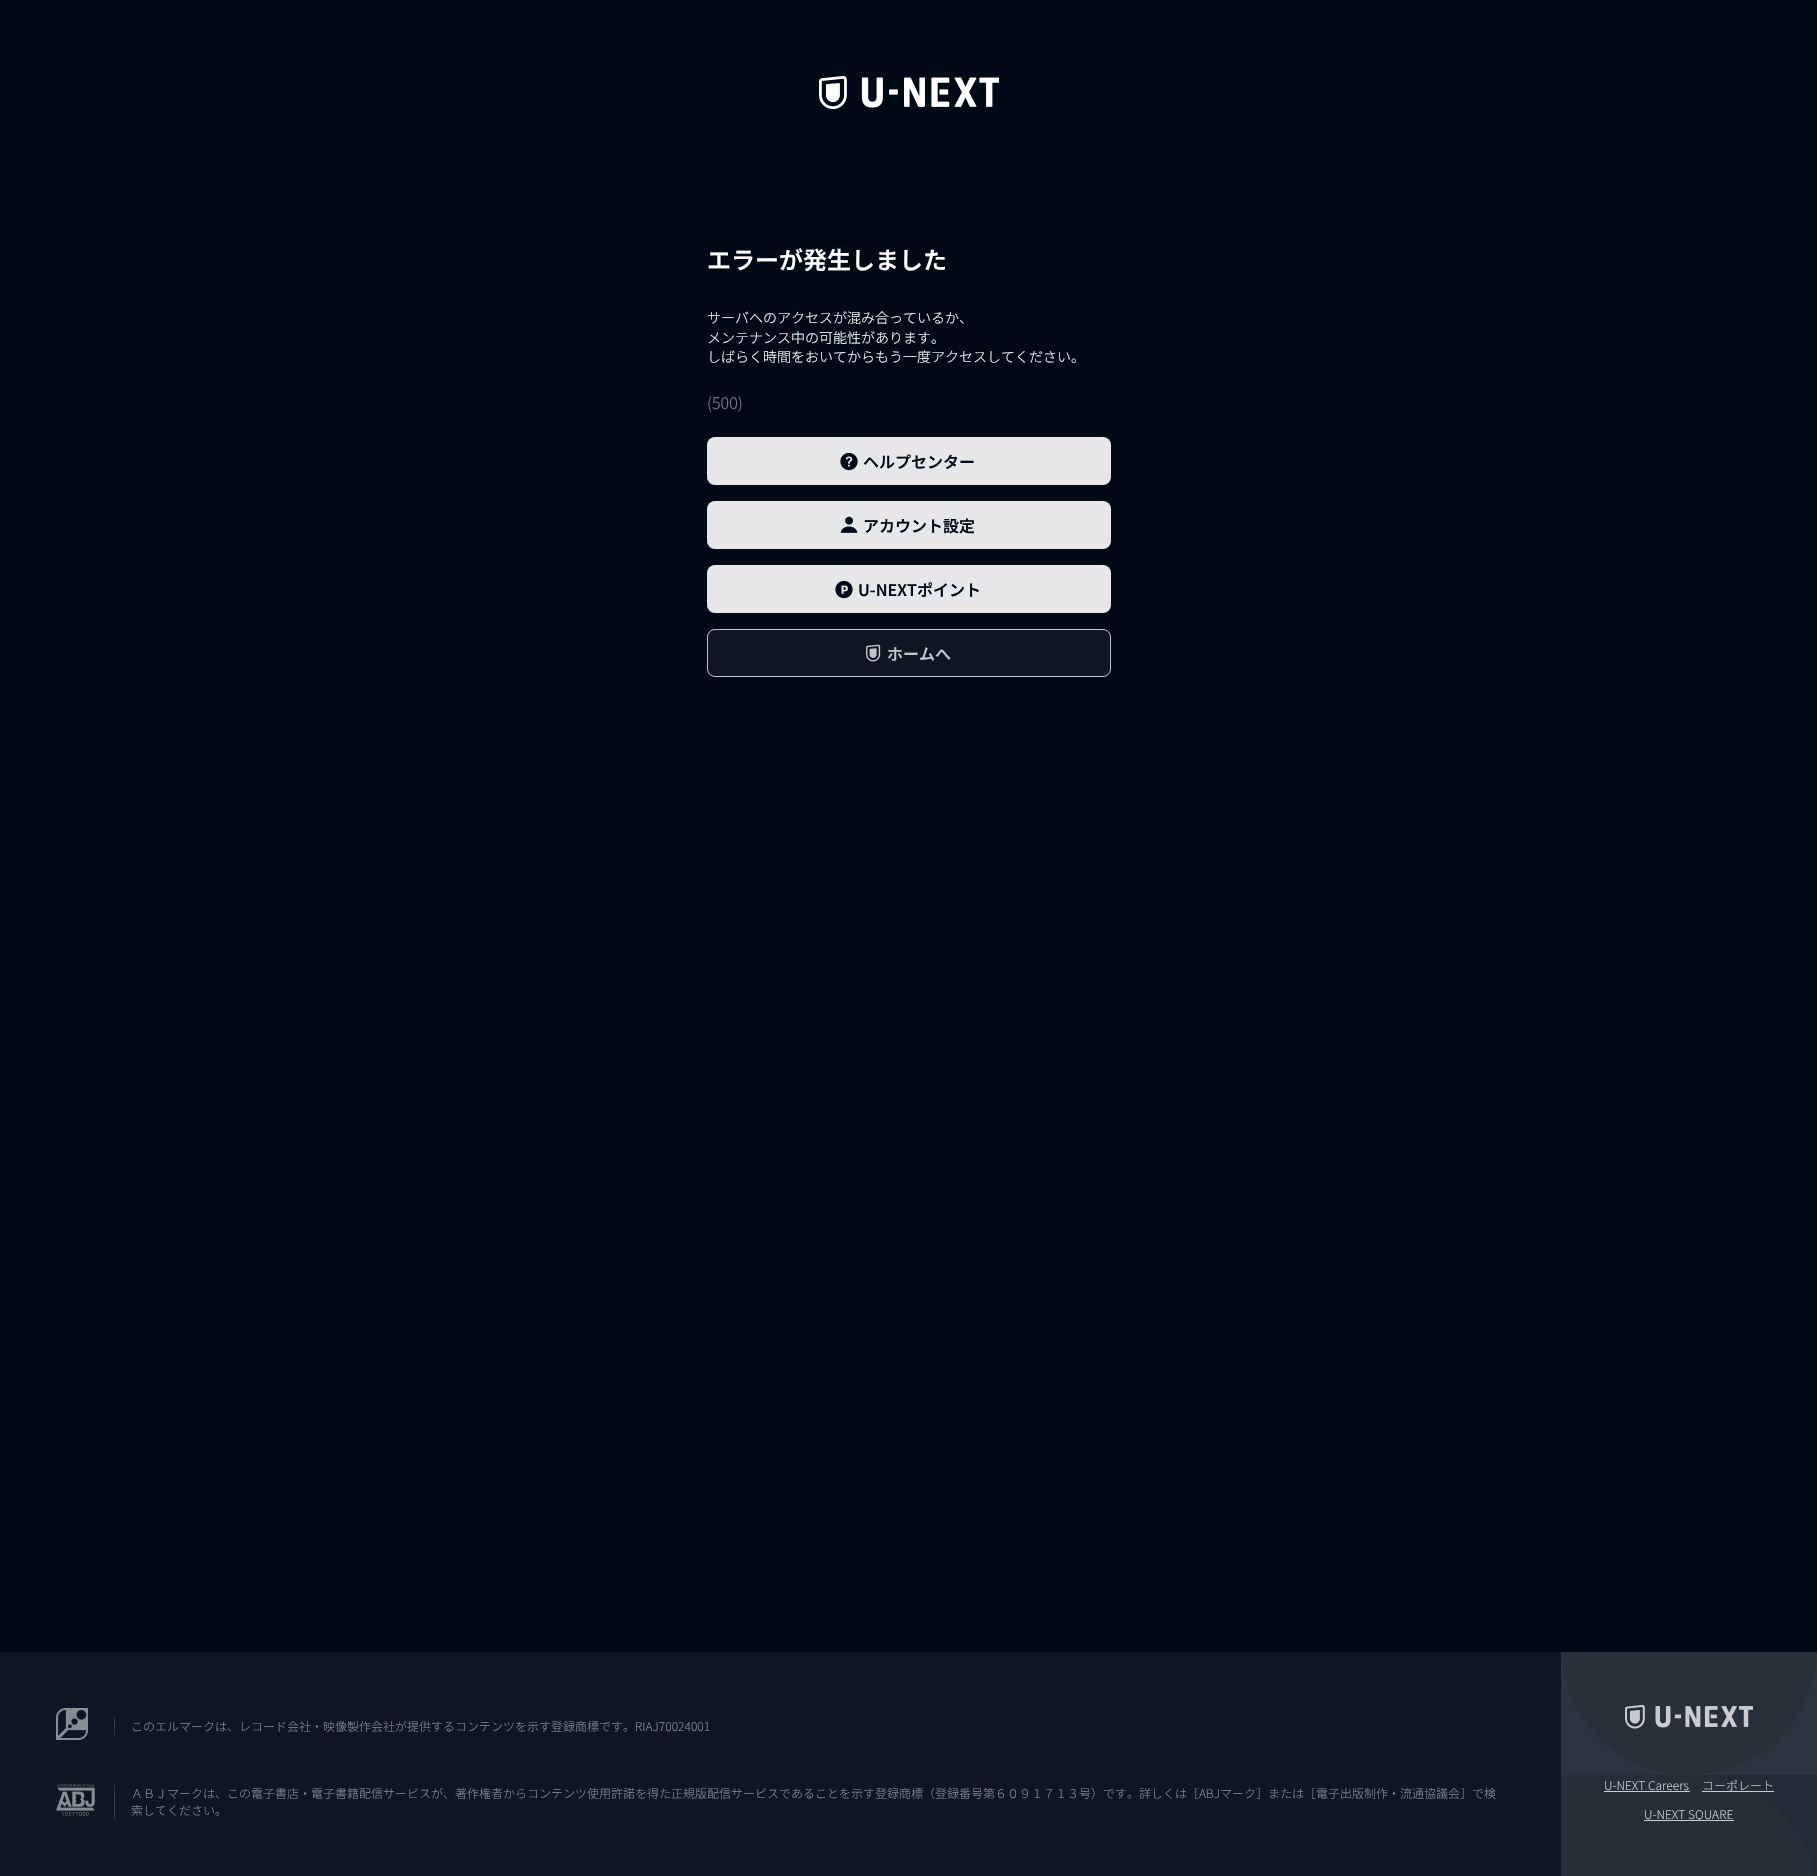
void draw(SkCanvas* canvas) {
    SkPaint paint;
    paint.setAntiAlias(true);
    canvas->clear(0xFF000A17);
    canvas->drawImageRect(SkImages::DeferredFromEncodedData(SkData::MakeFromFileName("img1.png")), SkRect::MakeXYWH(819, 76, 180, 34), SkSamplingOptions());
    SkFont font1(fontMgr->matchFamilyStyle("Noto Sans JP", SkFontStyle(600, SkFontStyle::kNormal_Width, SkFontStyle::kUpright_Slant)), 24);
    font1.setSubpixel(true);
    paint.setColor(0xFFFFFFFF);
    canvas->drawString("エラーが発生しました", 707, 269, font1, paint);
    SkFont font2(fontMgr->matchFamilyStyle("Noto Sans JP", SkFontStyle(300, SkFontStyle::kNormal_Width, SkFontStyle::kUpright_Slant)), 14);
    font2.setSubpixel(true);
    canvas->drawString("サーバへのアクセスが混み合っているか、", 707, 323, font2, paint);
    canvas->drawString("メンテナンス中の可能性があります。", 707, 343, font2, paint);
    canvas->drawString("しばらく時間をおいてからもう一度アクセスしてください。", 707, 362, font2, paint);
    SkFont font3(fontMgr->matchFamilyStyle("Noto Sans JP", SkFontStyle(300, SkFontStyle::kNormal_Width, SkFontStyle::kUpright_Slant)), 16);
    font3.setSubpixel(true);
    paint.setColor(0xFF80858B);
    canvas->drawString("(500)", 707, 409, font3, paint);
    paint.setColor(0xFFE6E7E8);
    canvas->drawRoundRect(SkRect::MakeXYWH(707, 437, 404, 48), 8, 8, paint);
    canvas->drawImageRect(SkImages::DeferredFromEncodedData(SkData::MakeFromFileName("img2.png")), SkRect::MakeXYWH(840, 452, 18, 19), SkSamplingOptions());
    SkFont font4(fontMgr->matchFamilyStyle("Noto Sans JP", SkFontStyle(600, SkFontStyle::kNormal_Width, SkFontStyle::kUpright_Slant)), 16);
    font4.setSubpixel(true);
    paint.setColor(0xFF000A17);
    canvas->drawString("ヘルプセンター", 863, 468, font4, paint);
    paint.setColor(0xFFE6E7E8);
    canvas->drawRoundRect(SkRect::MakeXYWH(707, 501, 404, 48), 8, 8, paint);
    canvas->drawImageRect(SkImages::DeferredFromEncodedData(SkData::MakeFromFileName("img3.png")), SkRect::MakeXYWH(840, 516, 18, 17), SkSamplingOptions());
    paint.setColor(0xFF000A17);
    canvas->drawString("アカウント設定", 863, 532, font4, paint);
    paint.setColor(0xFFE6E7E8);
    canvas->drawRoundRect(SkRect::MakeXYWH(707, 565, 404, 48), 8, 8, paint);
    canvas->drawImageRect(SkImages::DeferredFromEncodedData(SkData::MakeFromFileName("img4.png")), SkRect::MakeXYWH(835, 580, 18, 19), SkSamplingOptions());
    paint.setColor(0xFF000A17);
    canvas->drawString("U-NEXTポイント", 858, 596, font4, paint);
    paint.setColor(0xFF0D1623);
    canvas->drawRoundRect(SkRect::MakeXYWH(707, 629, 404, 48), 8, 8, paint);
    paint.setStyle(SkPaint::kStroke_Style);
    paint.setStrokeWidth(1);
    paint.setColor(0xBFFFFFFF);
    canvas->drawRoundRect(SkRect::MakeXYWH(707.5f, 629.5f, 403, 47), 7.5f, 7.5f, paint);
    canvas->drawImageRect(SkImages::DeferredFromEncodedData(SkData::MakeFromFileName("img5.png")), SkRect::MakeXYWH(866, 644, 15, 18), SkSamplingOptions());
    paint.setStyle(SkPaint::kFill_Style);
    paint.setColor(0xFFC3C5C8);
    canvas->drawString("ホームへ", 887, 660, font4, paint);
    paint.setColor(0xFF0D1623);
    canvas->drawRect(SkRect::MakeXYWH(0, 1652, 1561, 224), paint);
    canvas->drawImageRect(SkImages::DeferredFromEncodedData(SkData::MakeFromFileName("img6.png")), SkRect::MakeXYWH(56, 1708, 32, 32), SkSamplingOptions());
    paint.setColor(0xFF313944);
    canvas->drawRect(SkRect::MakeXYWH(114, 1718, 1, 17), paint);
    SkFont font5(fontMgr->matchFamilyStyle("Noto Sans JP", SkFontStyle(300, SkFontStyle::kNormal_Width, SkFontStyle::kUpright_Slant)), 12);
    font5.setSubpixel(true);
    paint.setColor(0xFF868B91);
    canvas->drawString("このエルマークは、レコード会社・映像製作会社が提供するコンテンツを示す登録商標です。RIAJ70024001", 131, 1731, font5, paint);
    canvas->drawImageRect(SkImages::DeferredFromEncodedData(SkData::MakeFromFileName("img7.png")), SkRect::MakeXYWH(56, 1784, 39, 32), SkSamplingOptions());
    paint.setColor(0xFF313944);
    canvas->drawRect(SkRect::MakeXYWH(114, 1785, 1, 34), paint);
    paint.setColor(0xFF868B91);
    canvas->drawString("ＡＢＪマークは、この電子書店・電子書籍配信サービスが、著作権者からコンテンツ使用許諾を得た正規版配信サービスであることを示す登録商標（登録番号第６０９１７１３号）です。詳しくは［ABJマーク］または［電子出版制作・流通協議会］で検", 131, 1798, font5, paint);
    canvas->drawString("索してください。", 131, 1815, font5, paint);
    paint.setColor(0xFF232B36);
    canvas->drawRect(SkRect::MakeXYWH(1690, 1775, 127, 101), paint);
    paint.setColor(0xFF262E38);
    canvas->drawPath(SkPathBuilder(SkPathFillType::kEvenOdd).moveTo(1817, 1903).cubicTo(1817, 1832, 1760, 1775, 1689, 1775).lineTo(1561, 1775).lineTo(1561, 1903).close().detach(), paint);
    paint.setColor(0xFF2B343F);
    canvas->drawRect(SkRect::MakeXYWH(1561, 1652, 256, 123), paint);
    canvas->save();
    canvas->clipRect(SkRect::MakeXYWH(1561, 1652, 256, 224));
    paint.setColor(0xFF28303A);
    canvas->drawPath(SkPathBuilder(SkPathFillType::kEvenOdd).moveTo(1689, 1775).cubicTo(1618, 1775, 1561, 1718, 1561, 1647).lineTo(1817, 1647).cubicTo(1817, 1718, 1760, 1775, 1689, 1775).close().detach(), paint);
    canvas->restore();
    canvas->drawImageRect(SkImages::DeferredFromEncodedData(SkData::MakeFromFileName("img8.png")), SkRect::MakeXYWH(1625, 1705, 128, 24), SkSamplingOptions());
    paint.setColor(0xFFC9CBCD);
    canvas->drawString("U-NEXT Careers", 1604, 1790, font5, paint);
    canvas->drawRect(SkRect::MakeXYWH(1604, 1791, 86, 1), paint);
    paint.setColor(0xFFC3C5C8);
    canvas->drawString("コーポレート", 1702, 1790, font5, paint);
    paint.setColor(0xBFFFFFFF);
    canvas->drawRect(SkRect::MakeXYWH(1702, 1791, 72, 1), paint);
    paint.setColor(0xFFC9CBCD);
    canvas->drawRect(SkRect::MakeXYWH(1644, 1820, 90, 1), paint);
    canvas->drawString("U-NEXT SQUARE", 1644, 1819, font5, paint);
}
